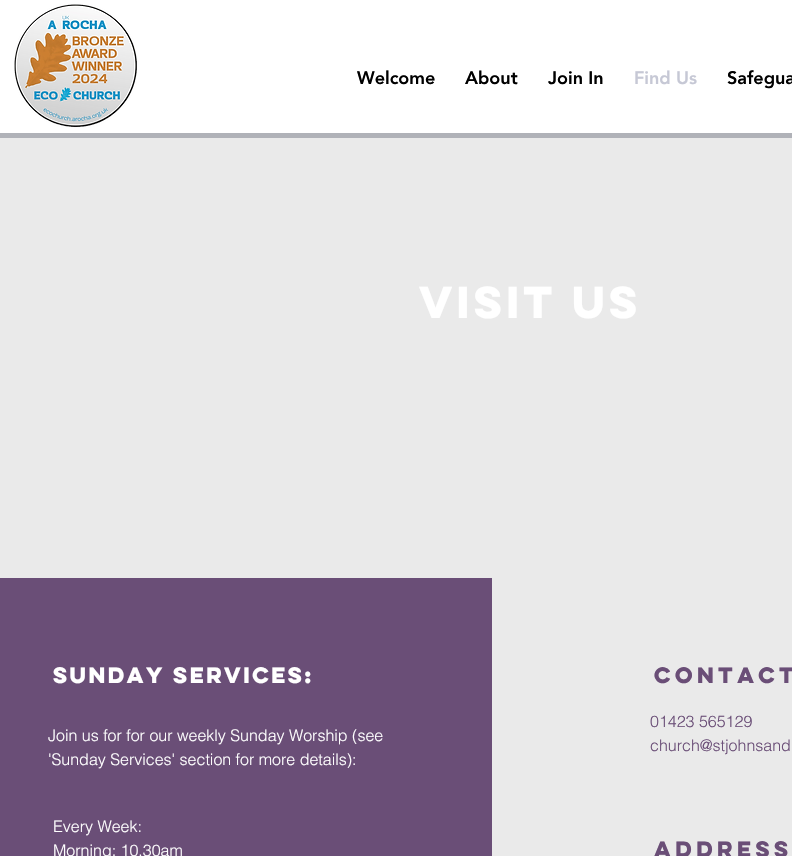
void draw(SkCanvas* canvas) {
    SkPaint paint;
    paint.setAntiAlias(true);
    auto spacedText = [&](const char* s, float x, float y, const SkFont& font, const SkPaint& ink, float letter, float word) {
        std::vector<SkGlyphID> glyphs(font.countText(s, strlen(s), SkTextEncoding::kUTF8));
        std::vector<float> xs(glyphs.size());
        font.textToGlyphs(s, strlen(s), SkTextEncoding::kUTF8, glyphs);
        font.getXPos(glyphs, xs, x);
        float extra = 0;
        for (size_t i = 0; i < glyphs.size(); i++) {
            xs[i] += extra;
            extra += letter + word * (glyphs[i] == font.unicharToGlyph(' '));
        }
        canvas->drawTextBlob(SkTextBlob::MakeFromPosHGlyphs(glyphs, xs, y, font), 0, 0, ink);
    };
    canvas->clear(0xFFEAEAEA);
    paint.setColor(0xFFFFFFFF);
    canvas->drawRect(SkRect::MakeXYWH(0, 0, 792, 133), paint);
    paint.setColor(0xFFB0B2B8);
    canvas->drawRect(SkRect::MakeXYWH(0, 133, 792, 5), paint);
    canvas->drawImageRect(SkImages::DeferredFromEncodedData(SkData::MakeFromFileName("img1.png")), SkRect::MakeXYWH(14, 4, 123, 124), SkSamplingOptions());
    SkFont font1(fontMgr->matchFamilyStyle("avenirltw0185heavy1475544", SkFontStyle(900, SkFontStyle::kNormal_Width, SkFontStyle::kUpright_Slant)), 18);
    font1.setSubpixel(true);
    paint.setColor(0xFF000000);
    canvas->drawString("Welcome", 357, 84, font1, paint);
    canvas->drawString("About", 465, 84, font1, paint);
    canvas->drawString("Join In", 548, 84, font1, paint);
    paint.setColor(0xFFC6C8D5);
    canvas->drawString("Find Us", 634, 84, font1, paint);
    paint.setColor(0xFF000000);
    canvas->drawString("Safegua", 727, 84, font1, paint);
    SkFont font2(fontMgr->matchFamilyStyle("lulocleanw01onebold", SkFontStyle::Bold()), 40);
    font2.setSubpixel(true);
    paint.setColor(0xFFFFFFFF);
    spacedText("Visit us", 419, 318, font2, paint, -4.75f, 0);
    paint.setColor(0xFF6A4E77);
    canvas->drawRect(SkRect::MakeXYWH(0, 578, 492, 278), paint);
    SkFont font3(fontMgr->matchFamilyStyle("lulocleanw01onebold", SkFontStyle::Bold()), 20);
    font3.setSubpixel(true);
    paint.setColor(0xFFFFFFFF);
    spacedText("Sunday services:", 53, 683, font3, paint, -2, 0);
    SkFont font4(fontMgr->matchFamilyStyle("helvetica", SkFontStyle(300, SkFontStyle::kNormal_Width, SkFontStyle::kUpright_Slant)), 16);
    font4.setSubpixel(true);
    canvas->drawString("Join us for for our weekly Sunday Worship (see", 48, 741, font4, paint);
    canvas->drawString("'Sunday Services' section for more details):", 48, 765, font4, paint);
    canvas->drawString("Every Week:", 53, 832, font4, paint);
    canvas->drawString("Morning: 10.30am", 53, 856, font4, paint);
    paint.setColor(0xFF6A4E77);
    canvas->drawString("Contact", 654, 683, font3, paint);
    canvas->drawString("01423 565129", 650, 727, font4, paint);
    canvas->drawString("church@stjohnsand", 650, 751, font4, paint);
    canvas->drawString("Address", 654, 857, font3, paint);
}
